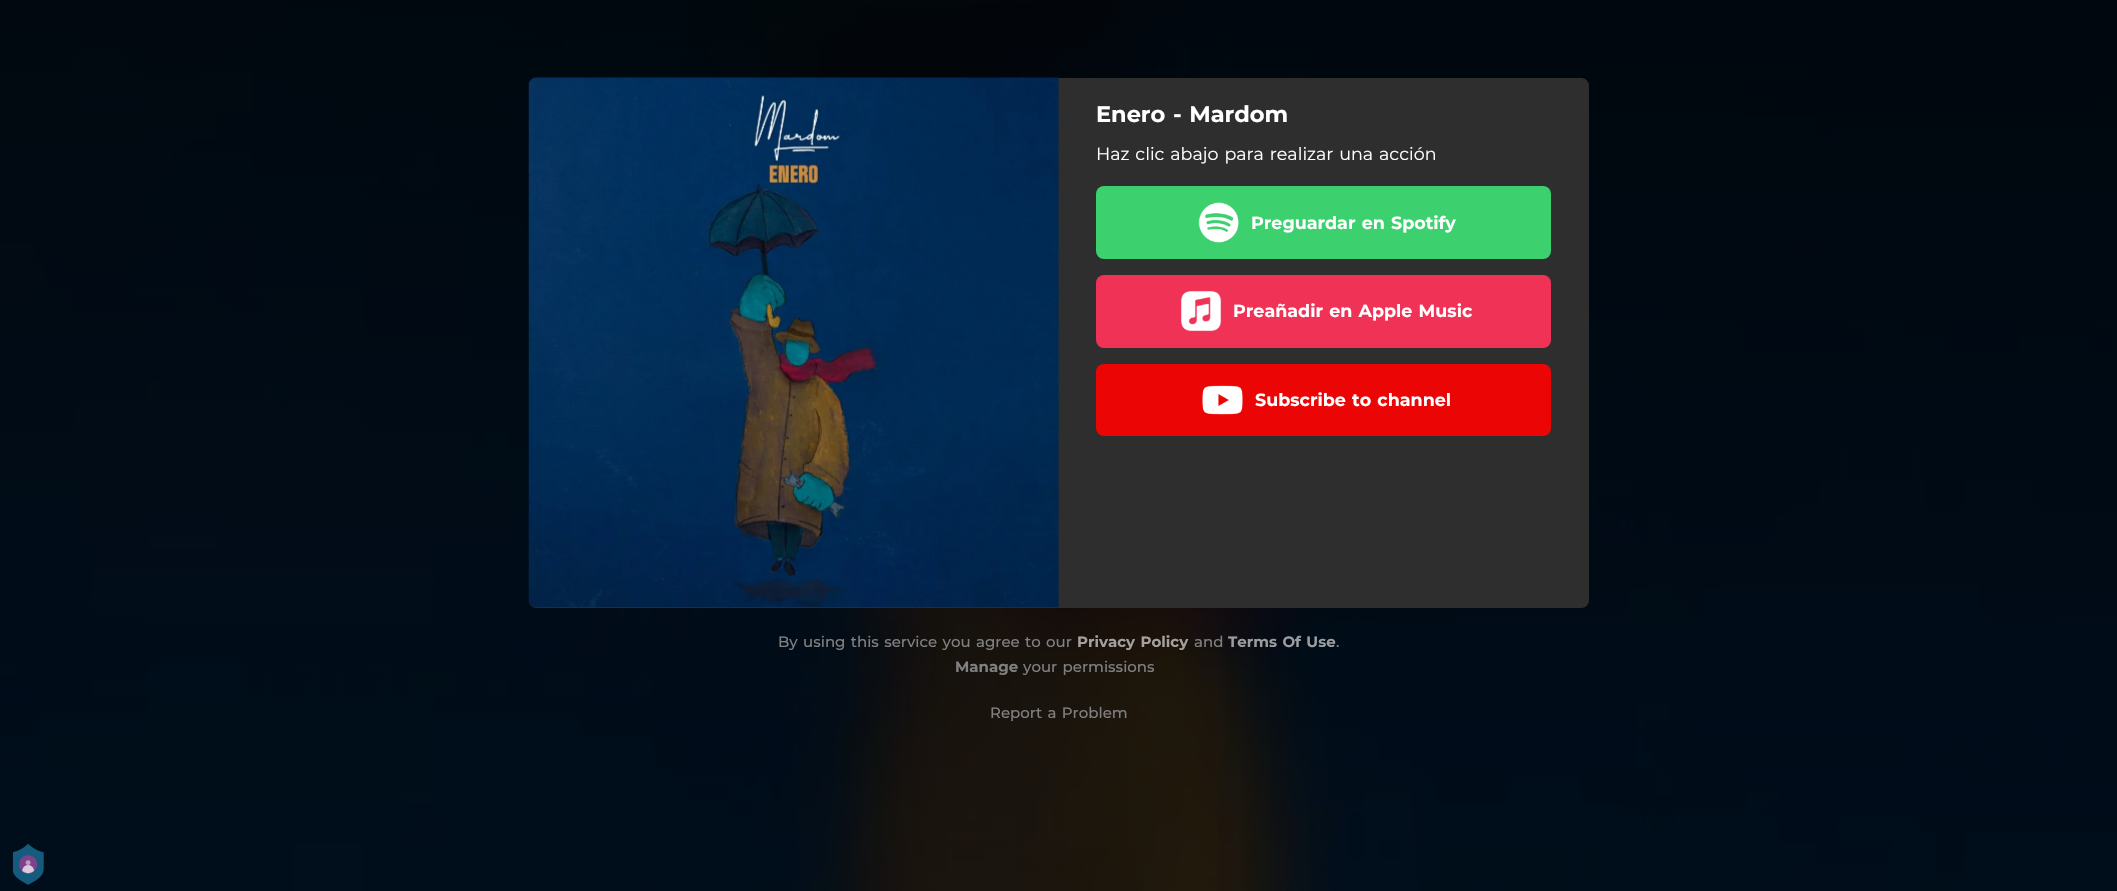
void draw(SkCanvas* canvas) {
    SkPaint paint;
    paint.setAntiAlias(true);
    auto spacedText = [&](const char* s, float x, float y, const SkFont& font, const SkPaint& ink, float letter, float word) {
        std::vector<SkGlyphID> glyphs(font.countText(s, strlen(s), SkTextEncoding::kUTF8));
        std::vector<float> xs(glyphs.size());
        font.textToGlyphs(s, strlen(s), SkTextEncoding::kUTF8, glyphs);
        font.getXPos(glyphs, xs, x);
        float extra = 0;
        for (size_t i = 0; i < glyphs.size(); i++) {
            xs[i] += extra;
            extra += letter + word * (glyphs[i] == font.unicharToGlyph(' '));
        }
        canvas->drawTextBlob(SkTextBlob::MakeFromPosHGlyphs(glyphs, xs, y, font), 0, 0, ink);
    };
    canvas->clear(0xFFFFFFFF);
    canvas->drawImageRect(SkImages::DeferredFromEncodedData(SkData::MakeFromFileName("img1.png")), SkRect::MakeXYWH(0, 0, 2117, 891), SkSamplingOptions());
    paint.setColor(0xFF2F2F2F);
    canvas->drawPath(SkPathBuilder().moveTo(537, 78).lineTo(1059, 78).lineTo(1059, 608).lineTo(537, 608).cubicTo(532.5f, 608, 529, 604.5f, 529, 600).lineTo(529, 86).cubicTo(529, 81.5f, 532.5f, 78, 537, 78).close().detach(), paint);
    canvas->drawImageRect(SkImages::DeferredFromEncodedData(SkData::MakeFromFileName("img2.png")), SkRect::MakeXYWH(528, 77, 531, 531), SkSamplingOptions());
    paint.setColor(0xFF2E2E2E);
    canvas->drawPath(SkPathBuilder().moveTo(1059, 78).lineTo(1581, 78).cubicTo(1585.5f, 78, 1589, 81.5f, 1589, 86).lineTo(1589, 600).cubicTo(1589, 604.5f, 1585.5f, 608, 1581, 608).lineTo(1059, 608).close().detach(), paint);
    SkFont font1(fontMgr->matchFamilyStyle("Montserrat", SkFontStyle::Bold()), 22.5f);
    font1.setSubpixel(true);
    paint.setColor(0xFFFFFFFF);
    spacedText("Enero - Mardom", 1096, 122, font1, paint, 0, 1.25f);
    SkFont font2(fontMgr->matchFamilyStyle("Montserrat", SkFontStyle::Normal()), 17.5f);
    font2.setSubpixel(true);
    spacedText("Haz clic abajo para realizar una acción", 1096, 160, font2, paint, 0, 1.25f);
    paint.setColor(0xFF3CD16E);
    canvas->drawRoundRect(SkRect::MakeXYWH(1096, 186, 455, 73), 8, 8, paint);
    canvas->drawImageRect(SkImages::DeferredFromEncodedData(SkData::MakeFromFileName("img3.png")), SkRect::MakeXYWH(1198, 202, 41, 41), SkSamplingOptions());
    SkFont font3(fontMgr->matchFamilyStyle("Montserrat", SkFontStyle::Bold()), 17.5f);
    font3.setSubpixel(true);
    paint.setColor(0xFFFFFFFF);
    spacedText("Preguardar en Spotify", 1251, 229, font3, paint, 0, 1.25f);
    paint.setColor(0xFFEF3256);
    canvas->drawRoundRect(SkRect::MakeXYWH(1096, 275, 455, 73), 8, 8, paint);
    canvas->drawImageRect(SkImages::DeferredFromEncodedData(SkData::MakeFromFileName("img4.png")), SkRect::MakeXYWH(1181, 291, 41, 41), SkSamplingOptions());
    paint.setColor(0xFFFFFFFF);
    spacedText("Preañadir en Apple Music", 1233, 317, font3, paint, 0, 1.25f);
    paint.setColor(0xFFEB0505);
    canvas->drawRoundRect(SkRect::MakeXYWH(1096, 364, 455, 72), 8, 8, paint);
    canvas->drawImageRect(SkImages::DeferredFromEncodedData(SkData::MakeFromFileName("img5.png")), SkRect::MakeXYWH(1202, 385, 41, 30), SkSamplingOptions());
    paint.setColor(0xFFFFFFFF);
    spacedText("Subscribe to channel", 1255, 406, font3, paint, 0, 1.25f);
    SkFont font4(fontMgr->matchFamilyStyle("Montserrat", SkFontStyle(500, SkFontStyle::kNormal_Width, SkFontStyle::kUpright_Slant)), 15);
    font4.setSubpixel(true);
    paint.setColor(0xFF808081);
    spacedText("By using this service you agree to our", 778, 647, font4, paint, 0, 1.25f);
    SkFont font5(fontMgr->matchFamilyStyle("Montserrat", SkFontStyle::Bold()), 15);
    font5.setSubpixel(true);
    paint.setColor(0xFFA3A09D);
    spacedText("Privacy Policy", 1077, 647, font5, paint, 0, 1.25f);
    paint.setColor(0xFF808081);
    canvas->drawString("and", 1194, 647, font4, paint);
    paint.setColor(0xFF9B9EA1);
    spacedText("Terms Of Use", 1228, 647, font5, paint, 0, 1.25f);
    paint.setColor(0xFF808081);
    canvas->drawString(".", 1336, 647, font4, paint);
    canvas->drawString("Manage", 955, 672, font5, paint);
    spacedText("your permissions", 1023, 672, font4, paint, 0, 1.25f);
    spacedText("Report a Problem", 990, 718, font4, paint, 0, 1.25f);
    canvas->drawImageRect(SkImages::DeferredFromEncodedData(SkData::MakeFromFileName("img6.png")), SkRect::MakeXYWH(13, 844, 31, 41), SkSamplingOptions());
}
